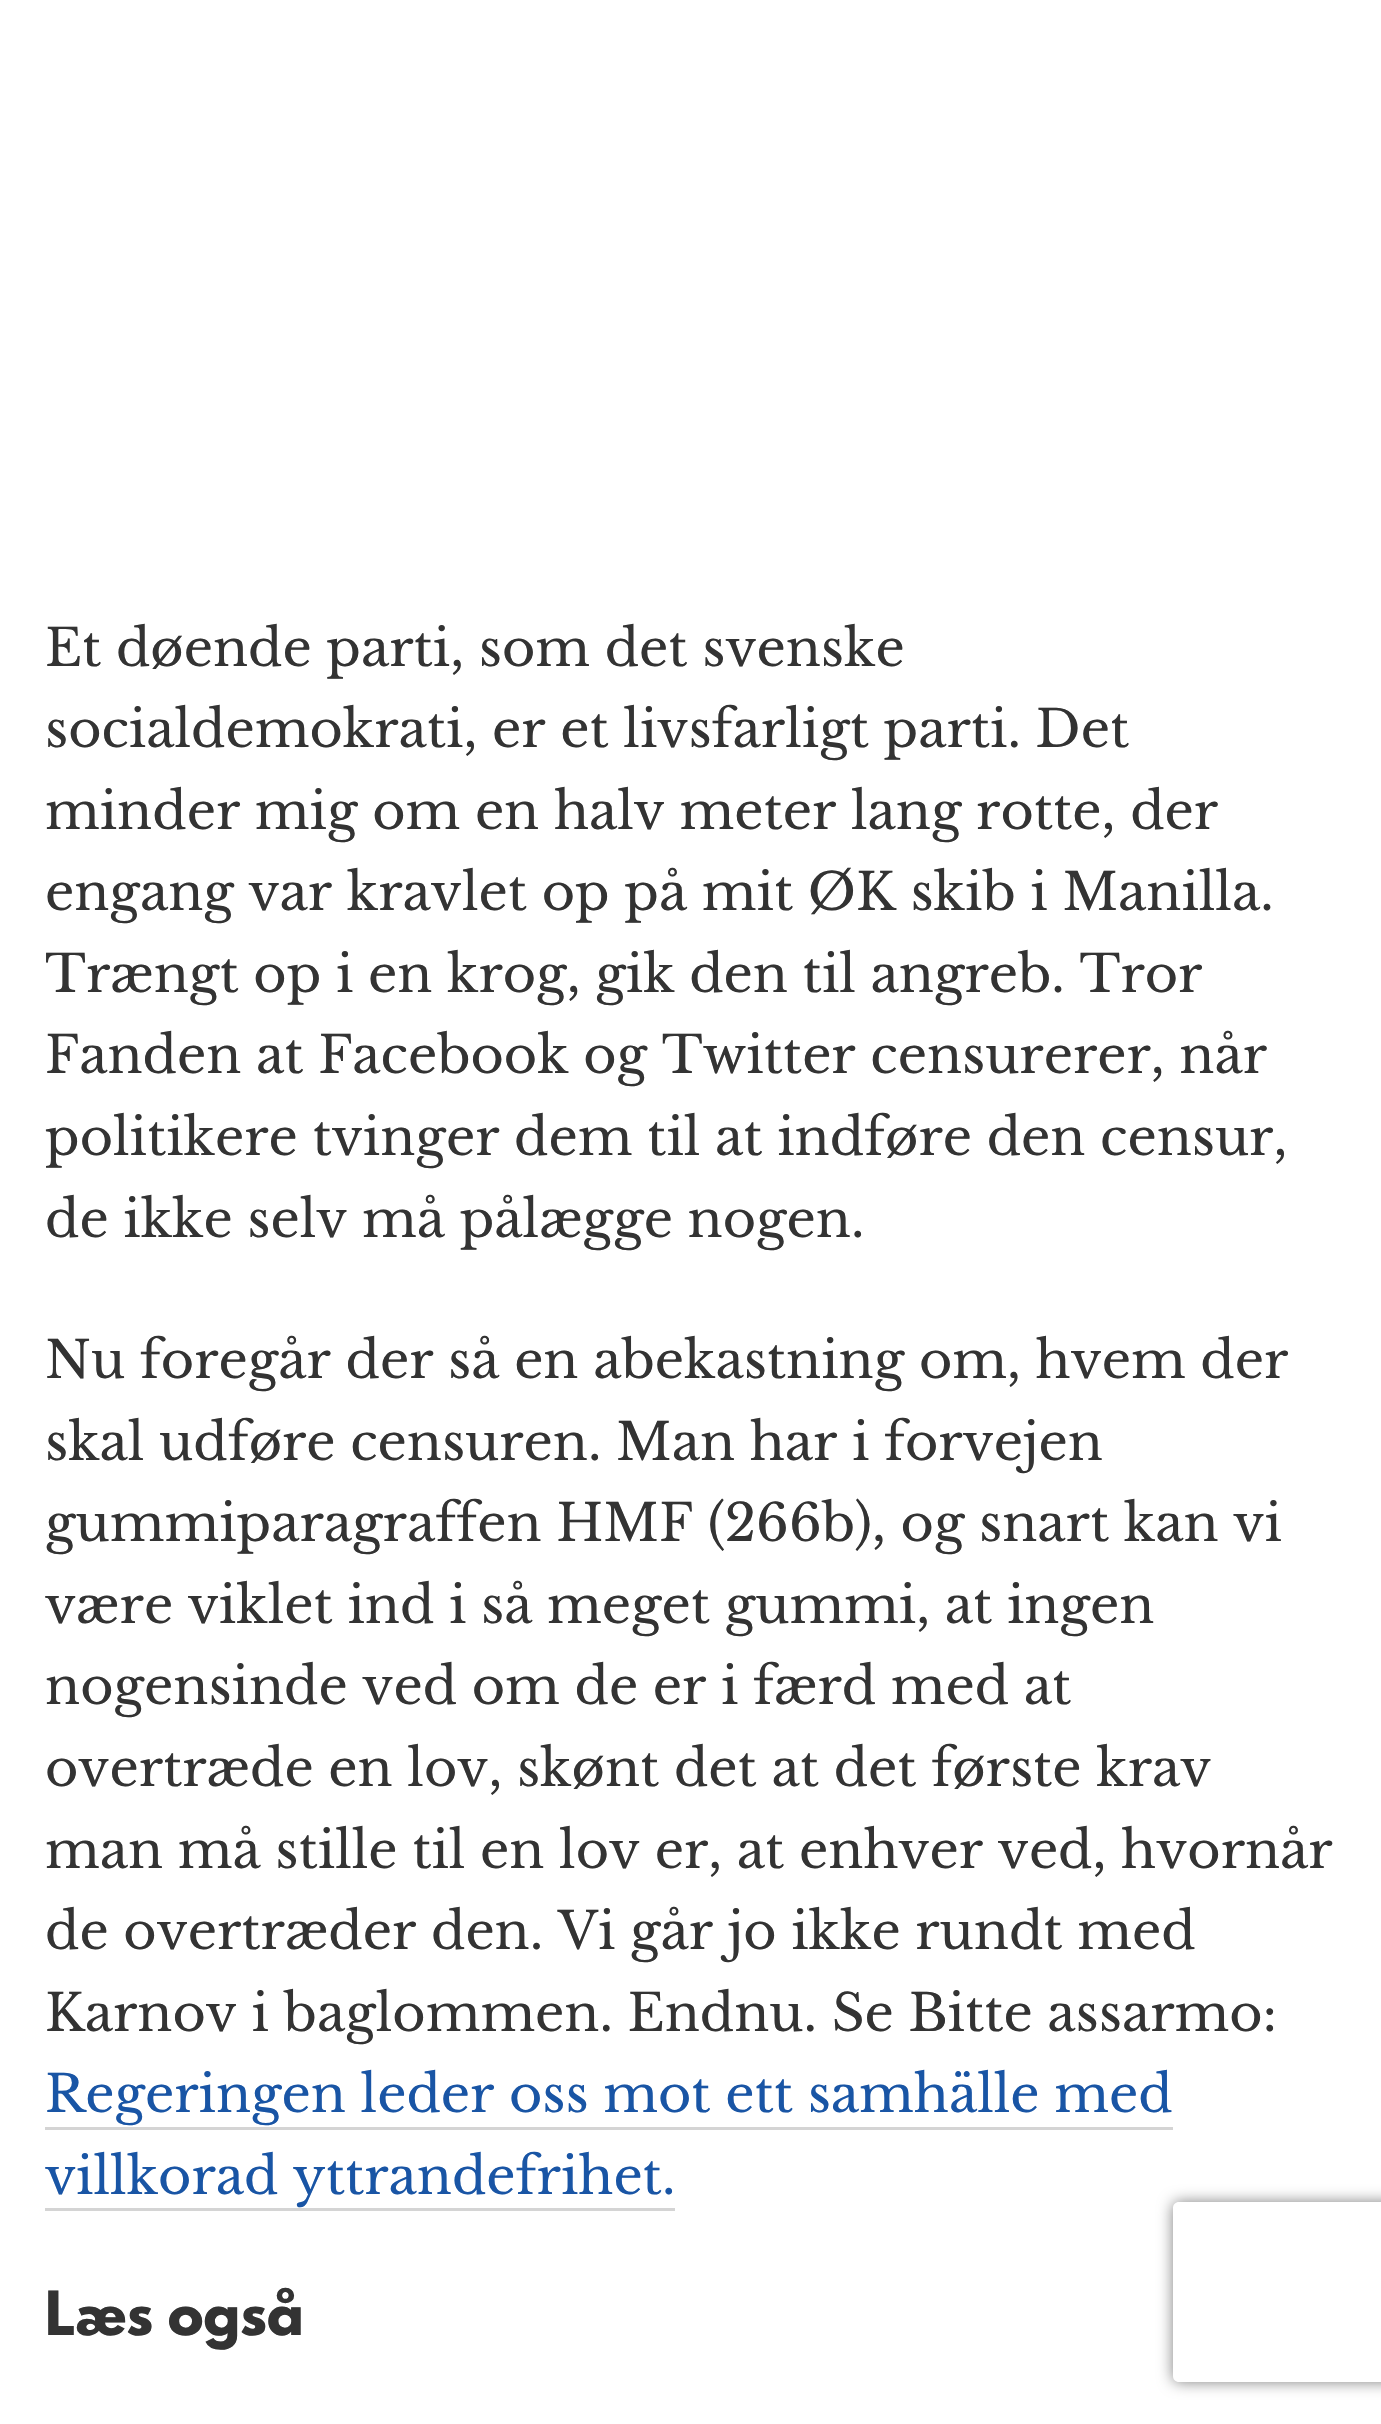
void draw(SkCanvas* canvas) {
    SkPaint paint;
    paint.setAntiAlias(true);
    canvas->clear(0xFFFFFFFF);
    SkFont font1(fontMgr->matchFamilyStyle("Libre Baskerville", SkFontStyle::Normal()), 51);
    font1.setSubpixel(true);
    paint.setColor(0xFF333333);
    canvas->drawString("Et døende parti, som det svenske", 45, 666, font1, paint);
    canvas->drawString("socialdemokrati, er et livsfarligt parti. Det", 45, 747, font1, paint);
    canvas->drawString("minder mig om en halv meter lang rotte, der", 45, 829, font1, paint);
    canvas->drawString("engang var kravlet op på mit ØK skib i Manilla.", 45, 910, font1, paint);
    canvas->drawString("Trængt op i en krog, gik den til angreb. Tror", 45, 992, font1, paint);
    canvas->drawString("Fanden at Facebook og Twitter censurerer, når", 45, 1073, font1, paint);
    canvas->drawString("politikere tvinger dem til at indføre den censur,", 45, 1155, font1, paint);
    canvas->drawString("de ikke selv må pålægge nogen.", 45, 1237, font1, paint);
    canvas->drawString("Nu foregår der så en abekastning om, hvem der", 45, 1378, font1, paint);
    canvas->drawString("skal udføre censuren. Man har i forvejen", 45, 1460, font1, paint);
    canvas->drawString("gummiparagraffen HMF (266b), og snart kan vi", 45, 1541, font1, paint);
    canvas->drawString("være viklet ind i så meget gummi, at ingen", 45, 1623, font1, paint);
    canvas->drawString("nogensinde ved om de er i færd med at", 45, 1704, font1, paint);
    canvas->drawString("overtræde en lov, skønt det at det første krav", 45, 1786, font1, paint);
    canvas->drawString("man må stille til en lov er, at enhver ved, hvornår", 45, 1868, font1, paint);
    canvas->drawString("de overtræder den. Vi går jo ikke rundt med", 45, 1949, font1, paint);
    canvas->drawString("Karnov i baglommen. Endnu. Se Bitte assarmo:", 45, 2031, font1, paint);
    paint.setColor(0xFF1955A5);
    canvas->drawString("Regeringen leder oss mot ett samhälle med", 45, 2112, font1, paint);
    paint.setColor(0xFFD4D4D4);
    canvas->drawRect(SkRect::MakeXYWH(45, 2127, 1128, 3), paint);
    paint.setColor(0xFF1955A5);
    canvas->drawString("villkorad yttrandefrihet.", 45, 2194, font1, paint);
    paint.setColor(0xFFD4D4D4);
    canvas->drawRect(SkRect::MakeXYWH(45, 2208, 630, 3), paint);
    SkFont font2(fontMgr->matchFamilyStyle("League Spartan", SkFontStyle::Bold()), 54);
    font2.setSubpixel(true);
    paint.setColor(0xFF333333);
    canvas->drawString("Læs også", 45, 2335, font2, paint);
    canvas->save();
    canvas->clipPath(SkPathBuilder(SkPathFillType::kEvenOdd).moveTo(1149, 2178).lineTo(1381, 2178).lineTo(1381, 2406).lineTo(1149, 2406).close().moveTo(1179, 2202).lineTo(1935, 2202).cubicTo(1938.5f, 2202, 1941, 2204.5f, 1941, 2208).lineTo(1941, 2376).cubicTo(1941, 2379.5f, 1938.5f, 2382, 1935, 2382).lineTo(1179, 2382).cubicTo(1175.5f, 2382, 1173, 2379.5f, 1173, 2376).lineTo(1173, 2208).cubicTo(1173, 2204.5f, 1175.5f, 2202, 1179, 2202).close().detach(), true);
    paint.setColor(0xFF808080);
    paint.setMaskFilter(SkMaskFilter::MakeBlur(kNormal_SkBlurStyle, 7.5f));
    canvas->drawRoundRect(SkRect::MakeXYWH(1173, 2202, 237, 180), 6, 6, paint);
    paint.setMaskFilter(nullptr);
    canvas->restore();
}
